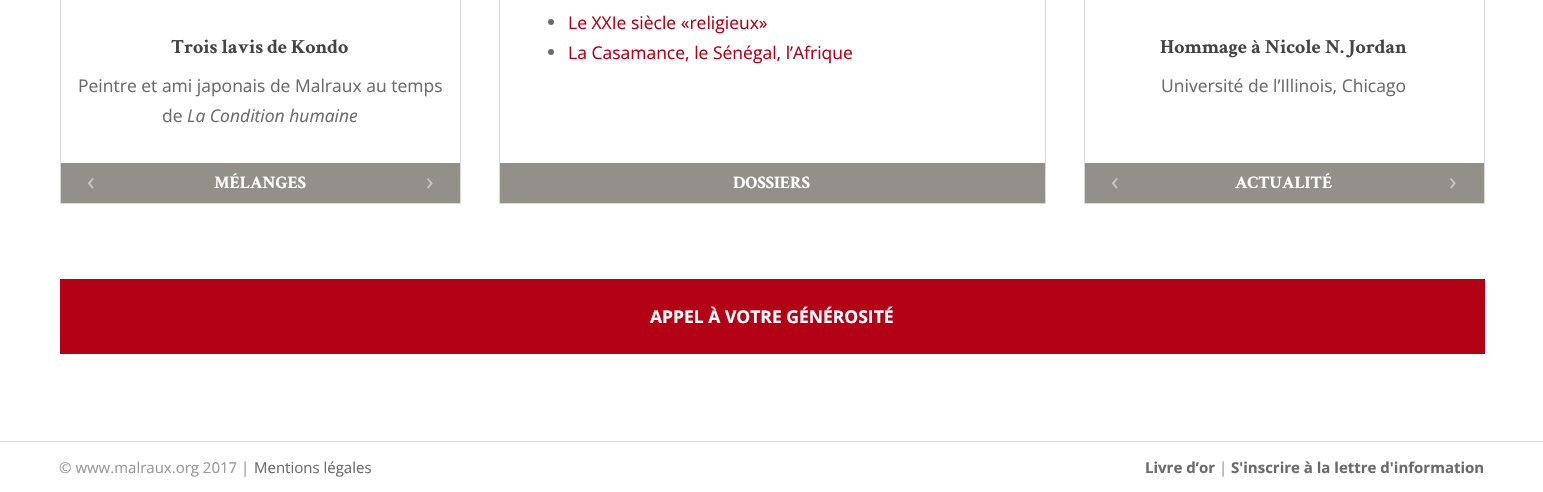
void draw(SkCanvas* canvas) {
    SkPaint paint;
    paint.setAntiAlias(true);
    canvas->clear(0xFFFFFFFF);
    paint.setStyle(SkPaint::kStroke_Style);
    paint.setStrokeWidth(1);
    paint.setColor(0xFFDADADA);
    canvas->drawRect(SkRect::MakeXYWH(60.5f, -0.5f, 400, 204), paint);
    SkFont font1(fontMgr->matchFamilyStyle("Crimson Text", SkFontStyle::Bold()), 20);
    font1.setSubpixel(true);
    paint.setStyle(SkPaint::kFill_Style);
    paint.setColor(0xFF444444);
    canvas->drawString("Trois lavis de Kondo", 171, 53, font1, paint);
    SkFont font2(fontMgr->matchFamilyStyle("Open Sans", SkFontStyle::Normal()), 17.5f);
    font2.setSubpixel(true);
    paint.setColor(0xFF6B6B6B);
    canvas->drawString("Peintre et ami japonais de Malraux au temps", 78, 92, font2, paint);
    canvas->drawString("de", 162, 122, font2, paint);
    SkFont font3(fontMgr->matchFamilyStyle("Open Sans", SkFontStyle::Italic()), 17.5f);
    font3.setSubpixel(true);
    canvas->drawString("La Condition humaine", 187, 122, font3, paint);
    paint.setColor(0xFF938F8A);
    canvas->drawRect(SkRect::MakeXYWH(61, 163, 399, 40), paint);
    SkFont font4(fontMgr->matchFamilyStyle("Open Sans", SkFontStyle::Normal()), 25);
    font4.setSubpixel(true);
    paint.setColor(0xFFC9C7C5);
    canvas->drawString("‹", 87, 190, font4, paint);
    SkFont font5(fontMgr->matchFamilyStyle("Crimson Text", SkFontStyle::Bold()), 17.5f);
    font5.setSubpixel(true);
    paint.setColor(0xFFFFFFFF);
    canvas->drawString("MÉLANGES", 214, 188, font5, paint);
    paint.setColor(0xFFC9C7C5);
    canvas->drawString("›", 426, 190, font4, paint);
    paint.setStyle(SkPaint::kStroke_Style);
    paint.setColor(0xFFDADADA);
    canvas->drawRect(SkRect::MakeXYWH(499.5f, -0.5f, 546, 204), paint);
    paint.setStyle(SkPaint::kFill_Style);
    paint.setColor(0xFF6B6B6B);
    canvas->drawCircle(551, 22, 3, paint);
    paint.setColor(0xFFB30116);
    canvas->drawString("Le XXIe siècle «religieux»", 568, 29, font2, paint);
    paint.setColor(0xFF6B6B6B);
    canvas->drawCircle(551, 52, 3, paint);
    paint.setColor(0xFFB30116);
    canvas->drawString("La Casamance, le Sénégal, l’Afrique", 568, 59, font2, paint);
    paint.setColor(0xFF938F8A);
    canvas->drawRect(SkRect::MakeXYWH(500, 163, 545, 40), paint);
    paint.setColor(0xFFFFFFFF);
    canvas->drawString("DOSSIERS", 733, 188, font5, paint);
    paint.setStyle(SkPaint::kStroke_Style);
    paint.setColor(0xFFDADADA);
    canvas->drawRect(SkRect::MakeXYWH(1084.5f, -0.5f, 400, 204), paint);
    paint.setStyle(SkPaint::kFill_Style);
    paint.setColor(0xFF444444);
    canvas->drawString("Hommage à Nicole N. Jordan", 1160, 53, font1, paint);
    paint.setColor(0xFF6B6B6B);
    canvas->drawString("Université de l’Illinois, Chicago", 1161, 92, font2, paint);
    paint.setColor(0xFF938F8A);
    canvas->drawRect(SkRect::MakeXYWH(1085, 163, 399, 40), paint);
    paint.setColor(0xFFC9C7C5);
    canvas->drawString("‹", 1111, 190, font4, paint);
    paint.setColor(0xFFFFFFFF);
    canvas->drawString("ACTUALITÉ", 1235, 188, font5, paint);
    paint.setColor(0xFFC9C7C5);
    canvas->drawString("›", 1449, 190, font4, paint);
    paint.setColor(0xFFB30116);
    canvas->drawRect(SkRect::MakeXYWH(60, 279, 1425, 75), paint);
    SkFont font6(fontMgr->matchFamilyStyle("Open Sans", SkFontStyle::Bold()), 17.5f);
    font6.setSubpixel(true);
    paint.setColor(0xFFFFFFFF);
    canvas->drawString("APPEL À VOTRE GÉNÉROSITÉ", 650, 323, font6, paint);
    paint.setColor(0xFFDADADA);
    canvas->drawRect(SkRect::MakeXYWH(0, 441, 1543, 1), paint);
    SkFont font7(fontMgr->matchFamilyStyle("Open Sans", SkFontStyle::Normal()), 15);
    font7.setSubpixel(true);
    paint.setColor(0xFF999999);
    canvas->drawString("© www.malraux.org 2017 |", 59, 473, font7, paint);
    paint.setColor(0xFF6B6B6B);
    canvas->drawString("Mentions légales", 254, 473, font7, paint);
    SkFont font8(fontMgr->matchFamilyStyle("Open Sans", SkFontStyle::Bold()), 15);
    font8.setSubpixel(true);
    canvas->drawString("Livre d’or", 1145, 473, font8, paint);
    paint.setColor(0xFF999999);
    canvas->drawString("|", 1219, 473, font7, paint);
    paint.setColor(0xFF6B6B6B);
    canvas->drawString("S'inscrire à la lettre d'information", 1231, 473, font8, paint);
}
